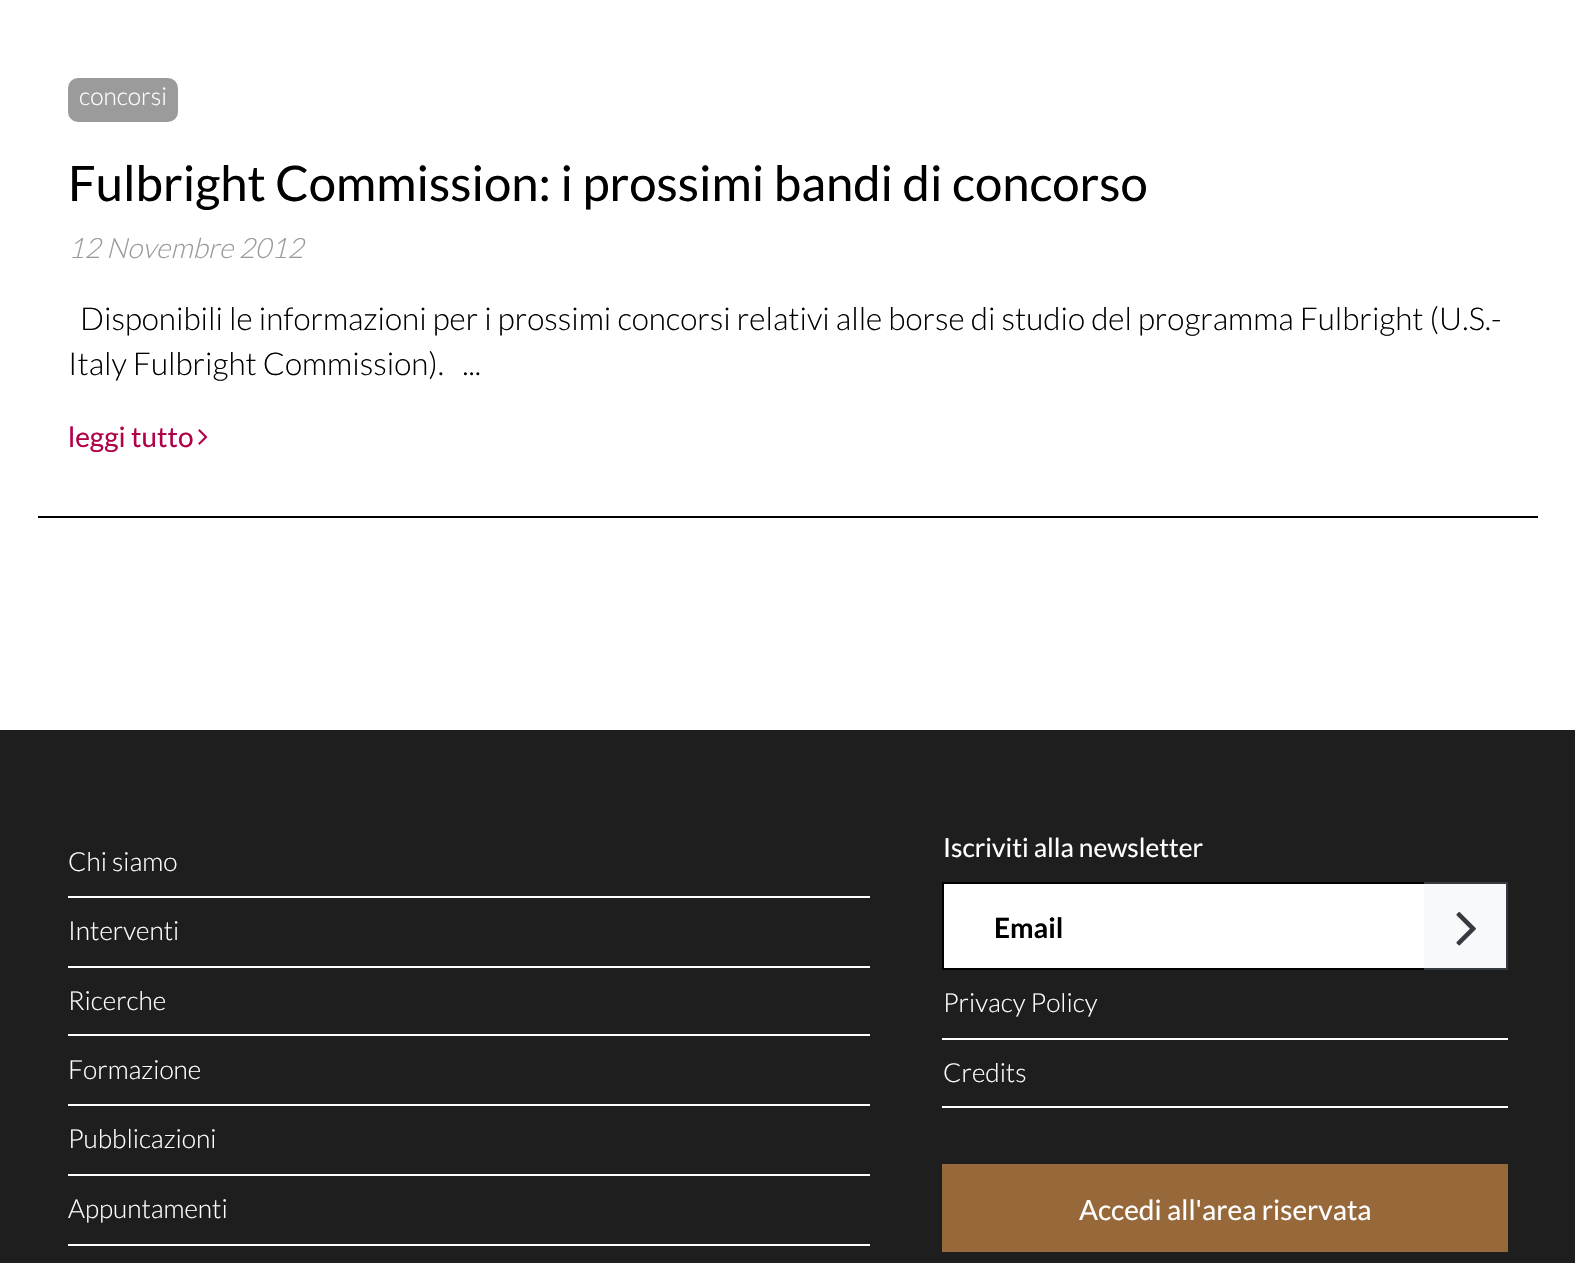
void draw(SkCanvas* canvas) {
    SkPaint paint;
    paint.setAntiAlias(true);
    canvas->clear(0xFFFFFFFF);
    paint.setColor(0xFF000000);
    canvas->drawRect(SkRect::MakeXYWH(38, 516, 1500, 2), paint);
    paint.setColor(0xFF9B9B9B);
    canvas->drawRoundRect(SkRect::MakeXYWH(68, 78, 110, 44), 10, 10, paint);
    SkFont font1(fontMgr->matchFamilyStyle("Lato", SkFontStyle(300, SkFontStyle::kNormal_Width, SkFontStyle::kUpright_Slant)), 24.5f);
    font1.setSubpixel(true);
    paint.setColor(0xFFFFFFFF);
    canvas->drawString("concorsi", 79, 105, font1, paint);
    SkFont font2(fontMgr->matchFamilyStyle("Lato", SkFontStyle::Normal()), 49);
    font2.setSubpixel(true);
    paint.setColor(0xFF000000);
    canvas->drawString("Fulbright Commission: i prossimi bandi di concorso", 68, 201, font2, paint);
    SkFont font3(fontMgr->matchFamilyStyle("Lato", SkFontStyle(300, SkFontStyle::kNormal_Width, SkFontStyle::kItalic_Slant)), 28);
    font3.setSubpixel(true);
    paint.setColor(0xFF9B9B9B);
    canvas->drawString("12 Novembre 2012", 68, 258, font3, paint);
    SkFont font4(fontMgr->matchFamilyStyle("Lato", SkFontStyle(300, SkFontStyle::kNormal_Width, SkFontStyle::kUpright_Slant)), 31.5f);
    font4.setSubpixel(true);
    paint.setColor(0xFF000000);
    canvas->drawString("Disponibili le informazioni per i prossimi concorsi relativi alle borse di studio del programma Fulbright (U.S.-", 80, 330, font4, paint);
    canvas->drawString("Italy Fulbright Commission).   ...", 68, 375, font4, paint);
    SkFont font5(fontMgr->matchFamilyStyle("Lato", SkFontStyle::Normal()), 28);
    font5.setSubpixel(true);
    paint.setColor(0xFFB00249);
    canvas->drawString("leggi tutto", 68, 447, font5, paint);
    canvas->drawImageRect(SkImages::DeferredFromEncodedData(SkData::MakeFromFileName("img1.png")), SkRect::MakeXYWH(198, 429, 10, 16), SkSamplingOptions());
    paint.setColor(0xFF1E1E1E);
    canvas->drawRect(SkRect::MakeXYWH(0, 730, 1575, 533), paint);
    paint.setColor(0xFFFFFFFF);
    canvas->drawRect(SkRect::MakeXYWH(68, 896, 802, 2), paint);
    SkFont font6(fontMgr->matchFamilyStyle("Lato", SkFontStyle(300, SkFontStyle::kNormal_Width, SkFontStyle::kUpright_Slant)), 26.25f);
    font6.setSubpixel(true);
    canvas->drawString("Chi siamo", 68, 871, font6, paint);
    canvas->drawRect(SkRect::MakeXYWH(68, 966, 802, 2), paint);
    canvas->drawString("Interventi", 68, 940, font6, paint);
    canvas->drawRect(SkRect::MakeXYWH(68, 1034, 802, 2), paint);
    canvas->drawString("Ricerche", 68, 1010, font6, paint);
    canvas->drawRect(SkRect::MakeXYWH(68, 1104, 802, 2), paint);
    canvas->drawString("Formazione", 68, 1079, font6, paint);
    canvas->drawRect(SkRect::MakeXYWH(68, 1174, 802, 2), paint);
    canvas->drawString("Pubblicazioni", 68, 1148, font6, paint);
    canvas->drawRect(SkRect::MakeXYWH(68, 1244, 802, 2), paint);
    canvas->drawString("Appuntamenti", 68, 1218, font6, paint);
    SkFont font7(fontMgr->matchFamilyStyle("Lato", SkFontStyle::Normal()), 26.25f);
    font7.setSubpixel(true);
    canvas->drawString("Iscriviti alla newsletter", 943, 857, font7, paint);
    canvas->drawRect(SkRect::MakeXYWH(943, 883, 482, 86), paint);
    paint.setStyle(SkPaint::kStroke_Style);
    paint.setStrokeWidth(2);
    paint.setColor(0xFF000000);
    canvas->drawRect(SkRect::MakeXYWH(943, 883, 482, 86), paint);
    SkFont font8(fontMgr->matchFamilyStyle("Lato", SkFontStyle::Bold()), 28);
    font8.setSubpixel(true);
    paint.setStyle(SkPaint::kFill_Style);
    canvas->drawString("Email", 994, 938, font8, paint);
    paint.setColor(0xFFF8F9FA);
    canvas->drawRect(SkRect::MakeXYWH(1424, 884, 82, 84), paint);
    paint.setColor(0xFF343A40);
    canvas->drawRect(SkRect::MakeXYWH(1424, 882, 84, 2), paint);
    canvas->drawRect(SkRect::MakeXYWH(1506, 882, 2, 88), paint);
    canvas->drawRect(SkRect::MakeXYWH(1424, 968, 84, 2), paint);
    canvas->drawImageRect(SkImages::DeferredFromEncodedData(SkData::MakeFromFileName("img2.png")), SkRect::MakeXYWH(1456, 912, 20, 34), SkSamplingOptions());
    paint.setColor(0xFFFFFFFF);
    canvas->drawRect(SkRect::MakeXYWH(942, 1038, 566, 2), paint);
    canvas->drawString("Privacy Policy", 943, 1012, font6, paint);
    canvas->drawRect(SkRect::MakeXYWH(942, 1106, 566, 2), paint);
    canvas->drawString("Credits", 943, 1082, font6, paint);
    paint.setColor(0xFF96683A);
    canvas->drawRect(SkRect::MakeXYWH(942, 1164, 566, 88), paint);
    paint.setColor(0xFFFFFFFF);
    canvas->drawString("Accedi all'area riservata", 1079, 1220, font5, paint);
}
